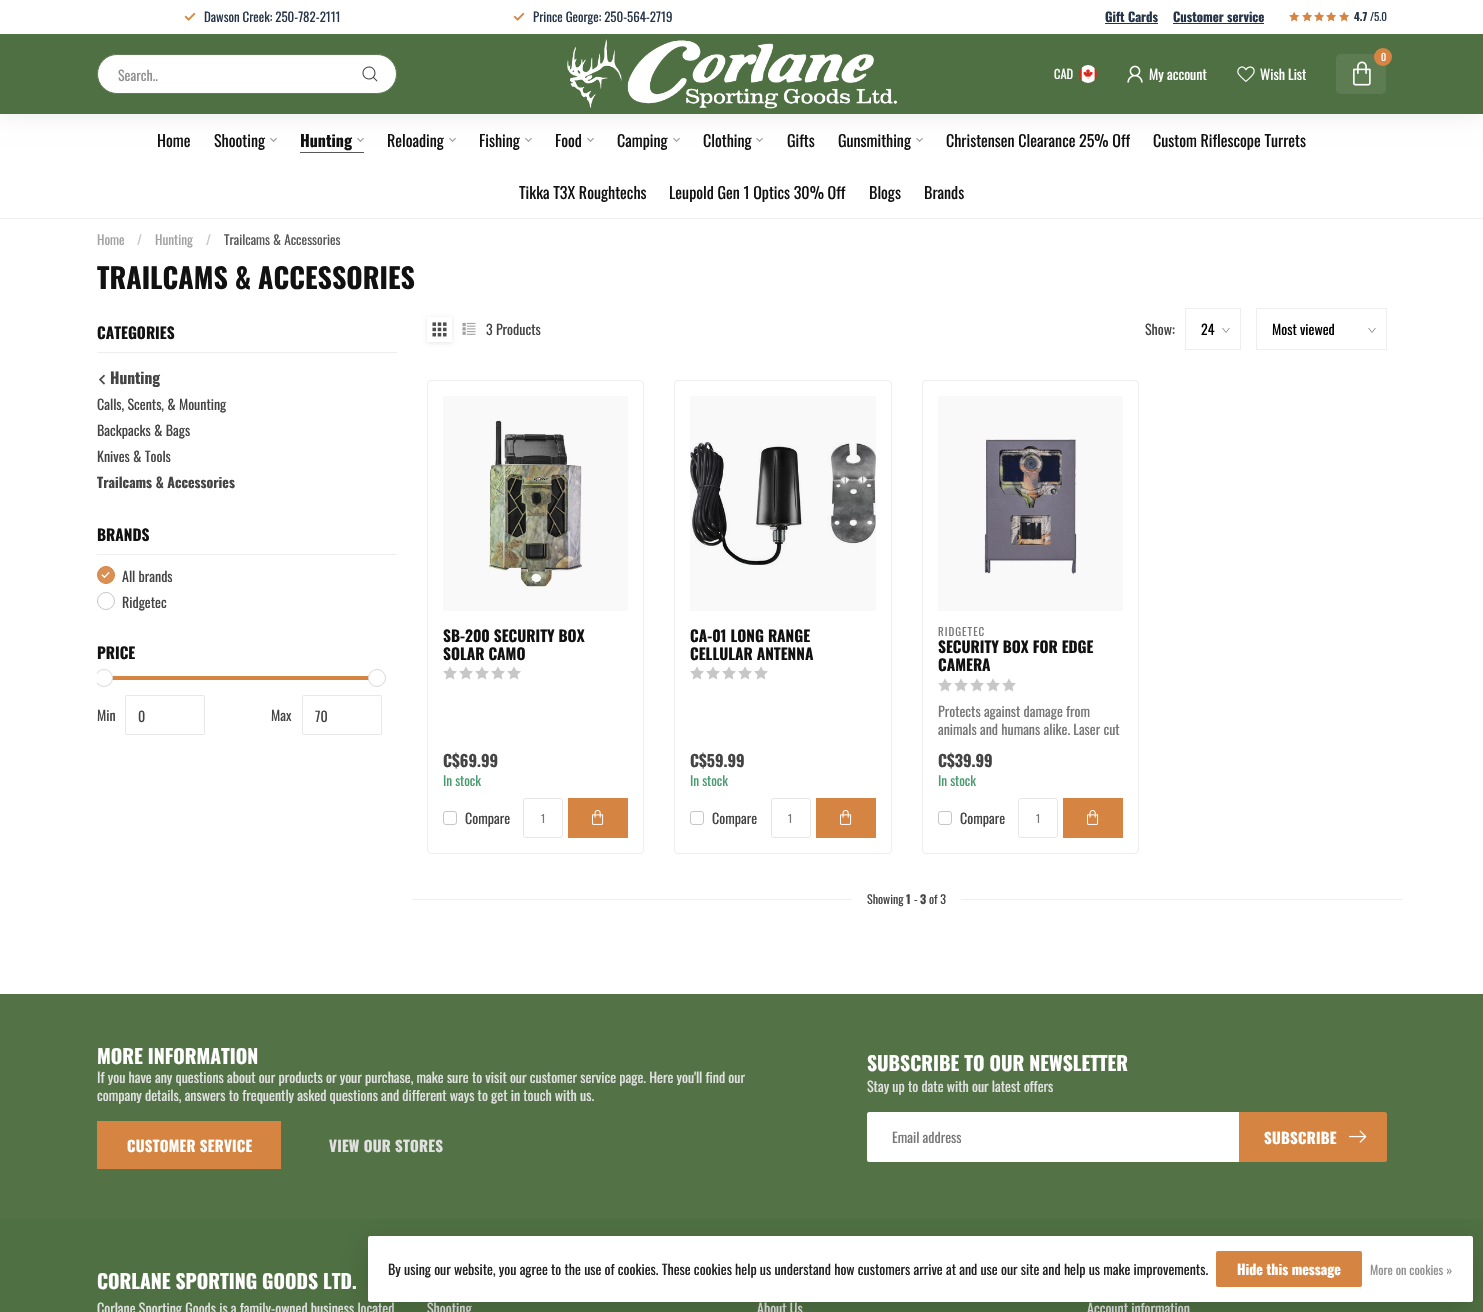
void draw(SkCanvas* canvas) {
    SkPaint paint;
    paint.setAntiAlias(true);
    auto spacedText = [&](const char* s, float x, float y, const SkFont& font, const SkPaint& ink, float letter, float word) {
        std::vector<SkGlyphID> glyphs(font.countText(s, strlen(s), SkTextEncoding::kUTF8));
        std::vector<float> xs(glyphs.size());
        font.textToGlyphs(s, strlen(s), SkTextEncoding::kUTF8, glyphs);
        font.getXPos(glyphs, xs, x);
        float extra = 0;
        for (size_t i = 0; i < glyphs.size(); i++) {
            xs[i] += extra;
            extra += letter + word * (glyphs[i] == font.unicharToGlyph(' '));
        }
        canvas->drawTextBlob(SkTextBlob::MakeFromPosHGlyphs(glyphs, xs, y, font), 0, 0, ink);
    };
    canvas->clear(0xFFFFFFFF);
    canvas->drawImageRect(SkImages::DeferredFromEncodedData(SkData::MakeFromFileName("img9.png")), SkRect::MakeXYWH(270, 137, 7, 5), SkSamplingOptions());
    canvas->drawImageRect(SkImages::DeferredFromEncodedData(SkData::MakeFromFileName("img9.png")), SkRect::MakeXYWH(357, 137, 7, 5), SkSamplingOptions());
    canvas->drawImageRect(SkImages::DeferredFromEncodedData(SkData::MakeFromFileName("img9.png")), SkRect::MakeXYWH(449, 137, 7, 5), SkSamplingOptions());
    canvas->drawImageRect(SkImages::DeferredFromEncodedData(SkData::MakeFromFileName("img9.png")), SkRect::MakeXYWH(525, 137, 7, 5), SkSamplingOptions());
    canvas->drawImageRect(SkImages::DeferredFromEncodedData(SkData::MakeFromFileName("img9.png")), SkRect::MakeXYWH(587, 137, 7, 5), SkSamplingOptions());
    canvas->drawImageRect(SkImages::DeferredFromEncodedData(SkData::MakeFromFileName("img9.png")), SkRect::MakeXYWH(673, 137, 7, 5), SkSamplingOptions());
    canvas->drawImageRect(SkImages::DeferredFromEncodedData(SkData::MakeFromFileName("img9.png")), SkRect::MakeXYWH(756, 137, 7, 5), SkSamplingOptions());
    canvas->drawImageRect(SkImages::DeferredFromEncodedData(SkData::MakeFromFileName("img9.png")), SkRect::MakeXYWH(916, 137, 7, 5), SkSamplingOptions());
    paint.setColor(0x14000000);
    paint.setMaskFilter(SkMaskFilter::MakeBlur(kNormal_SkBlurStyle, 11));
    canvas->drawRect(SkRect::MakeXYWH(0, 0, 1483, 114), paint);
    paint.setMaskFilter(nullptr);
    paint.setColor(0xFF4F7042);
    canvas->drawRect(SkRect::MakeXYWH(0, 34, 1483, 80), paint);
    paint.setColor(0xFFFFFFFF);
    canvas->drawRect(SkRect::MakeXYWH(0, 0, 1483, 34), paint);
    canvas->drawImageRect(SkImages::DeferredFromEncodedData(SkData::MakeFromFileName("img1.png")), SkRect::MakeXYWH(184, 12, 12, 9), SkSamplingOptions());
    SkFont font1(fontMgr->matchFamilyStyle("Oswald", SkFontStyle::Normal()), 12.9f);
    font1.setSubpixel(true);
    paint.setColor(0xFF253448);
    canvas->drawString("Dawson Creek: 250-782-2111", 204, 22, font1, paint);
    canvas->drawImageRect(SkImages::DeferredFromEncodedData(SkData::MakeFromFileName("img1.png")), SkRect::MakeXYWH(513, 12, 12, 9), SkSamplingOptions());
    canvas->drawString("Prince George: 250-564-2719", 533, 22, font1, paint);
    SkFont font2(fontMgr->matchFamilyStyle("Oswald", SkFontStyle::Bold()), 12.9f);
    font2.setSubpixel(true);
    canvas->drawString("Gift Cards", 1105, 22, font2, paint);
    canvas->drawRect(SkRect::MakeXYWH(1105, 23, 53, 1), paint);
    canvas->drawString("Customer service", 1173, 22, font2, paint);
    canvas->drawRect(SkRect::MakeXYWH(1173, 23, 91, 1), paint);
    canvas->drawImageRect(SkImages::DeferredFromEncodedData(SkData::MakeFromFileName("img2.png")), SkRect::MakeXYWH(1289, 11, 11, 11), SkSamplingOptions());
    canvas->drawImageRect(SkImages::DeferredFromEncodedData(SkData::MakeFromFileName("img2.png")), SkRect::MakeXYWH(1302, 11, 11, 11), SkSamplingOptions());
    canvas->drawImageRect(SkImages::DeferredFromEncodedData(SkData::MakeFromFileName("img2.png")), SkRect::MakeXYWH(1314, 11, 11, 11), SkSamplingOptions());
    canvas->drawImageRect(SkImages::DeferredFromEncodedData(SkData::MakeFromFileName("img2.png")), SkRect::MakeXYWH(1326, 11, 11, 11), SkSamplingOptions());
    canvas->drawImageRect(SkImages::DeferredFromEncodedData(SkData::MakeFromFileName("img2.png")), SkRect::MakeXYWH(1339, 11, 11, 11), SkSamplingOptions());
    SkFont font3(fontMgr->matchFamilyStyle("Oswald", SkFontStyle::Bold()), 11);
    font3.setSubpixel(true);
    canvas->drawString("4.7", 1354, 21, font3, paint);
    SkFont font4(fontMgr->matchFamilyStyle("Oswald", SkFontStyle::Normal()), 11);
    font4.setSubpixel(true);
    canvas->drawString("/5.0", 1370, 21, font4, paint);
    paint.setColor(0xFFFFFFFF);
    canvas->drawRoundRect(SkRect::MakeXYWH(97.5f, 54.5f, 299, 39), 19.5f, 19.5f, paint);
    paint.setStyle(SkPaint::kStroke_Style);
    paint.setStrokeWidth(1);
    paint.setColor(0xFF607E54);
    canvas->drawRoundRect(SkRect::MakeXYWH(97.5f, 54.5f, 299, 39), 19.5f, 19.5f, paint);
    SkFont font5(fontMgr->matchFamilyStyle("Oswald", SkFontStyle::Normal()), 14);
    font5.setSubpixel(true);
    paint.setStyle(SkPaint::kFill_Style);
    paint.setColor(0xFF8F8F8F);
    canvas->drawString("Search..", 118, 81, font5, paint);
    canvas->drawImageRect(SkImages::DeferredFromEncodedData(SkData::MakeFromFileName("img3.png")), SkRect::MakeXYWH(362, 66, 16, 16), SkSamplingOptions());
    canvas->drawImageRect(SkImages::DeferredFromEncodedData(SkData::MakeFromFileName("img4.png")), SkRect::MakeXYWH(567, 39, 330, 70), SkSamplingOptions());
    paint.setColor(0xFF5E7C52);
    canvas->drawRoundRect(SkRect::MakeXYWH(1336, 54, 50, 40), 5, 5, paint);
    paint.setColor(0xFFD68442);
    canvas->drawCircle(1383, 57, 9, paint);
    SkFont font6(fontMgr->matchFamilyStyle("Oswald", SkFontStyle::Normal()), 10);
    font6.setSubpixel(true);
    paint.setColor(0xFFFFFFFF);
    canvas->drawString("0", 1381, 61, font6, paint);
    canvas->drawImageRect(SkImages::DeferredFromEncodedData(SkData::MakeFromFileName("img5.png")), SkRect::MakeXYWH(1353, 61, 18, 25), SkSamplingOptions());
    SkFont font7(fontMgr->matchFamilyStyle("Oswald", SkFontStyle::Normal()), 12.5f);
    font7.setSubpixel(true);
    canvas->drawString("CAD", 1054, 79, font7, paint);
    canvas->drawImageRect(SkImages::DeferredFromEncodedData(SkData::MakeFromFileName("img6.png")), SkRect::MakeXYWH(1079, 65, 18, 18), SkSamplingOptions());
    canvas->drawImageRect(SkImages::DeferredFromEncodedData(SkData::MakeFromFileName("img7.png")), SkRect::MakeXYWH(1127, 65, 16, 18), SkSamplingOptions());
    canvas->drawString("My account", 1149, 80, font5, paint);
    canvas->drawImageRect(SkImages::DeferredFromEncodedData(SkData::MakeFromFileName("img8.png")), SkRect::MakeXYWH(1237, 66, 18, 16), SkSamplingOptions());
    canvas->drawString("Wish List", 1260, 80, font5, paint);
    paint.setColor(0xFFEEEEEE);
    canvas->drawRect(SkRect::MakeXYWH(0, 218, 1483, 1), paint);
    SkFont font8(fontMgr->matchFamilyStyle("Oswald", SkFontStyle::Normal()), 16);
    font8.setSubpixel(true);
    paint.setColor(0xFF111111);
    canvas->drawString("Home", 157, 147, font8, paint);
    canvas->drawString("Shooting", 214, 147, font8, paint);
    SkFont font9(fontMgr->matchFamilyStyle("Oswald", SkFontStyle::Bold()), 16);
    font9.setSubpixel(true);
    canvas->drawString("Hunting", 300, 147, font9, paint);
    paint.setColor(0xFF585858);
    canvas->drawRect(SkRect::MakeXYWH(300, 152, 64, 1), paint);
    paint.setColor(0xFF111111);
    canvas->drawString("Reloading", 387, 147, font8, paint);
    canvas->drawString("Fishing", 479, 147, font8, paint);
    canvas->drawString("Food", 555, 147, font8, paint);
    canvas->drawString("Camping", 617, 147, font8, paint);
    canvas->drawString("Clothing", 703, 147, font8, paint);
    canvas->drawString("Gifts", 787, 147, font8, paint);
    canvas->drawString("Gunsmithing", 838, 147, font8, paint);
    canvas->drawString("Christensen Clearance 25% Off", 946, 147, font8, paint);
    canvas->drawString("Custom Riflescope Turrets", 1153, 147, font8, paint);
    canvas->drawString("Tikka T3X Roughtechs", 519, 199, font8, paint);
    canvas->drawString("Leupold Gen 1 Optics 30% Off", 669, 199, font8, paint);
    canvas->drawString("Blogs", 869, 199, font8, paint);
    canvas->drawString("Brands", 924, 199, font8, paint);
    SkFont font10(fontMgr->matchFamilyStyle("Oswald", SkFontStyle::Normal()), 13.25f);
    font10.setSubpixel(true);
    paint.setColor(0xFFA2A2A2);
    canvas->drawString("Home", 97, 245, font10, paint);
    paint.setColor(0xFFC7C7C7);
    canvas->drawString("/", 137, 245, font10, paint);
    paint.setColor(0xFFA2A2A2);
    canvas->drawString("Hunting", 155, 245, font10, paint);
    paint.setColor(0xFFC7C7C7);
    canvas->drawString("/", 206, 245, font10, paint);
    paint.setColor(0xFF575757);
    canvas->drawString("Trailcams & Accessories", 224, 245, font10, paint);
    SkFont font11(fontMgr->matchFamilyStyle("Oswald", SkFontStyle::Bold()), 28);
    font11.setSubpixel(true);
    paint.setColor(0xFF111111);
    canvas->drawString("TRAILCAMS & ACCESSORIES", 97, 289, font11, paint);
    paint.setColor(0xFFEEEEEE);
    canvas->drawRect(SkRect::MakeXYWH(97, 352, 300, 1), paint);
    SkFont font12(fontMgr->matchFamilyStyle("Oswald", SkFontStyle::Bold()), 15.4f);
    font12.setSubpixel(true);
    paint.setColor(0xFF111111);
    canvas->drawString("CATEGORIES", 97, 339, font12, paint);
    canvas->drawImageRect(SkImages::DeferredFromEncodedData(SkData::MakeFromFileName("img10.png")), SkRect::MakeXYWH(99, 374, 6, 11), SkSamplingOptions());
    paint.setColor(0xFF444444);
    canvas->drawString("Hunting", 110, 384, font12, paint);
    canvas->drawString("Calls, Scents, & Mounting", 97, 410, font5, paint);
    canvas->drawString("Backpacks & Bags", 97, 436, font5, paint);
    canvas->drawString("Knives & Tools", 97, 462, font5, paint);
    canvas->save();
    canvas->clipRect(SkRect::MakeXYWH(97, 323, 300, 427));
    SkFont font13(fontMgr->matchFamilyStyle("Oswald", SkFontStyle::Bold()), 14);
    font13.setSubpixel(true);
    canvas->drawString("Trailcams & Accessories", 97, 488, font13, paint);
    canvas->restore();
    paint.setColor(0xFFEEEEEE);
    canvas->drawRect(SkRect::MakeXYWH(97, 554, 300, 1), paint);
    paint.setColor(0xFF111111);
    canvas->drawString("BRANDS", 97, 541, font12, paint);
    paint.setColor(0xFFDA9054);
    canvas->drawCircle(106, 575, 8.5f, paint);
    paint.setStyle(SkPaint::kStroke_Style);
    paint.setColor(0xFFD68442);
    canvas->drawCircle(106, 575, 8.5f, paint);
    canvas->drawImageRect(SkImages::DeferredFromEncodedData(SkData::MakeFromFileName("img11.png")), SkRect::MakeXYWH(101, 572, 9, 7), SkSamplingOptions());
    paint.setStyle(SkPaint::kFill_Style);
    paint.setColor(0xFF444444);
    canvas->drawString("All brands", 122, 582, font5, paint);
    paint.setStyle(SkPaint::kStroke_Style);
    paint.setColor(0xFFC6C6C6);
    canvas->drawCircle(106, 601, 8.5f, paint);
    paint.setStyle(SkPaint::kFill_Style);
    paint.setColor(0xFF444444);
    canvas->drawString("Ridgetec", 122, 608, font5, paint);
    paint.setColor(0xFF111111);
    canvas->drawString("PRICE", 97, 659, font12, paint);
    paint.setColor(0xFFD68442);
    canvas->drawRect(SkRect::MakeXYWH(107, 676, 262, 4), paint);
    canvas->save();
    canvas->clipRect(SkRect::MakeXYWH(97, 323, 300, 427));
    paint.setColor(0xFFFFFFFF);
    canvas->drawCircle(104, 678, 8.5f, paint);
    paint.setStyle(SkPaint::kStroke_Style);
    paint.setColor(0xFFD9D9D9);
    canvas->drawCircle(104, 678, 8.5f, paint);
    canvas->restore();
    paint.setStyle(SkPaint::kFill_Style);
    paint.setColor(0xFFFFFFFF);
    canvas->drawCircle(377, 678, 8.5f, paint);
    paint.setStyle(SkPaint::kStroke_Style);
    paint.setColor(0xFFD9D9D9);
    canvas->drawCircle(377, 678, 8.5f, paint);
    paint.setStyle(SkPaint::kFill_Style);
    paint.setColor(0xFF444444);
    canvas->drawString("Min", 97, 721, font5, paint);
    paint.setStyle(SkPaint::kStroke_Style);
    paint.setColor(0xFFE8E8E8);
    canvas->drawRoundRect(SkRect::MakeXYWH(125.5f, 695.5f, 79, 39), 1.5f, 1.5f, paint);
    paint.setStyle(SkPaint::kFill_Style);
    paint.setColor(0xFF444444);
    canvas->drawString("0", 138, 722, font5, paint);
    canvas->drawString("Max", 271, 721, font5, paint);
    paint.setStyle(SkPaint::kStroke_Style);
    paint.setColor(0xFFE8E8E8);
    canvas->drawRoundRect(SkRect::MakeXYWH(302.5f, 695.5f, 79, 39), 1.5f, 1.5f, paint);
    paint.setStyle(SkPaint::kFill_Style);
    paint.setColor(0xFF444444);
    canvas->drawString("70", 315, 722, font5, paint);
    canvas->save();
    canvas->clipPath(SkPathBuilder(SkPathFillType::kEvenOdd).moveTo(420, 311).lineTo(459, 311).lineTo(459, 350).lineTo(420, 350).close().moveTo(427, 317).lineTo(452, 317).lineTo(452, 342).lineTo(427, 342).close().detach(), true);
    paint.setColor(0x1A000000);
    paint.setMaskFilter(SkMaskFilter::MakeBlur(kNormal_SkBlurStyle, 2));
    canvas->drawRect(SkRect::MakeXYWH(427, 318, 25, 25), paint);
    paint.setMaskFilter(nullptr);
    canvas->restore();
    canvas->drawImageRect(SkImages::DeferredFromEncodedData(SkData::MakeFromFileName("img12.png")), SkRect::MakeXYWH(432, 322, 15, 15), SkSamplingOptions());
    canvas->drawImageRect(SkImages::DeferredFromEncodedData(SkData::MakeFromFileName("img13.png")), SkRect::MakeXYWH(462, 322, 14, 13), SkSamplingOptions());
    paint.setColor(0xFF444444);
    canvas->drawString("3 Products", 486, 335, font5, paint);
    canvas->drawString("Show:", 1145, 335, font5, paint);
    paint.setStyle(SkPaint::kStroke_Style);
    paint.setStrokeWidth(0.7f);
    paint.setColor(0xFF595959);
    canvas->drawPath(SkPathBuilder().moveTo(1229.5f, 328).lineTo(1226, 332.5f).lineTo(1222.5f, 328).detach(), paint);
    paint.setStrokeWidth(1);
    paint.setColor(0xFFEEEEEE);
    canvas->drawRect(SkRect::MakeXYWH(1185.5f, 308.5f, 55, 41), paint);
    paint.setStyle(SkPaint::kFill_Style);
    paint.setColor(0xFF000000);
    canvas->drawString("24", 1201, 335, font5, paint);
    paint.setStyle(SkPaint::kStroke_Style);
    paint.setStrokeWidth(0.7f);
    paint.setColor(0xFF595959);
    canvas->drawPath(SkPathBuilder().moveTo(1375.5f, 328).lineTo(1372, 332.5f).lineTo(1368.5f, 328).detach(), paint);
    paint.setStrokeWidth(1);
    paint.setColor(0xFFEEEEEE);
    canvas->drawRect(SkRect::MakeXYWH(1256.5f, 308.5f, 130, 41), paint);
    paint.setStyle(SkPaint::kFill_Style);
    paint.setColor(0xFF000000);
    canvas->drawString("Most viewed", 1272, 335, font5, paint);
    paint.setStyle(SkPaint::kStroke_Style);
    paint.setColor(0xFFEEEEEE);
    canvas->drawRoundRect(SkRect::MakeXYWH(427.5f, 380.5f, 216, 473), 3.5f, 3.5f, paint);
    paint.setStyle(SkPaint::kFill_Style);
    paint.setColor(0xFFF9F9F9);
    canvas->drawRect(SkRect::MakeXYWH(443, 396, 185, 215), paint);
    canvas->drawImageRect(SkImages::DeferredFromEncodedData(SkData::MakeFromFileName("img14.png")), SkRect::MakeXYWH(489, 420, 93, 167), SkSamplingOptions());
    paint.setColor(0xFF111111);
    canvas->drawString("SB-200 SECURITY BOX", 443, 642, font12, paint);
    canvas->drawString("SOLAR CAMO", 443, 660, font12, paint);
    canvas->drawImageRect(SkImages::DeferredFromEncodedData(SkData::MakeFromFileName("img15.png")), SkRect::MakeXYWH(443, 666, 14, 14), SkSamplingOptions());
    canvas->drawImageRect(SkImages::DeferredFromEncodedData(SkData::MakeFromFileName("img15.png")), SkRect::MakeXYWH(459, 666, 14, 14), SkSamplingOptions());
    canvas->drawImageRect(SkImages::DeferredFromEncodedData(SkData::MakeFromFileName("img15.png")), SkRect::MakeXYWH(475, 666, 14, 14), SkSamplingOptions());
    canvas->drawImageRect(SkImages::DeferredFromEncodedData(SkData::MakeFromFileName("img15.png")), SkRect::MakeXYWH(491, 666, 14, 14), SkSamplingOptions());
    canvas->drawImageRect(SkImages::DeferredFromEncodedData(SkData::MakeFromFileName("img15.png")), SkRect::MakeXYWH(507, 666, 14, 14), SkSamplingOptions());
    paint.setColor(0xFF444444);
    canvas->drawString("C$69.99", 443, 767, font9, paint);
    paint.setColor(0xFF489C6D);
    canvas->drawString("In stock", 443, 786, font10, paint);
    paint.setStyle(SkPaint::kStroke_Style);
    paint.setColor(0xFFC6C6C6);
    canvas->drawRoundRect(SkRect::MakeXYWH(443.5f, 811.5f, 13, 13), 2.5f, 2.5f, paint);
    paint.setStyle(SkPaint::kFill_Style);
    paint.setColor(0xFF444444);
    canvas->drawString("Compare", 465, 824, font5, paint);
    paint.setStyle(SkPaint::kStroke_Style);
    paint.setColor(0xFFE7E7E7);
    canvas->drawRoundRect(SkRect::MakeXYWH(523.5f, 798.5f, 39, 39), 2.5f, 2.5f, paint);
    paint.setStyle(SkPaint::kFill_Style);
    paint.setColor(0xFF777777);
    canvas->drawString("1", 541, 823, font4, paint);
    paint.setColor(0xFFD68442);
    canvas->drawRect(SkRect::MakeXYWH(568, 798, 60, 40), paint);
    canvas->drawImageRect(SkImages::DeferredFromEncodedData(SkData::MakeFromFileName("img16.png")), SkRect::MakeXYWH(592, 810, 12, 15), SkSamplingOptions());
    paint.setStyle(SkPaint::kStroke_Style);
    paint.setColor(0xFFEEEEEE);
    canvas->drawRoundRect(SkRect::MakeXYWH(674.5f, 380.5f, 217, 473), 3.5f, 3.5f, paint);
    paint.setStyle(SkPaint::kFill_Style);
    paint.setColor(0xFFF9F9F9);
    canvas->drawRect(SkRect::MakeXYWH(690, 396, 186, 215), paint);
    canvas->drawImageRect(SkImages::DeferredFromEncodedData(SkData::MakeFromFileName("img17.png")), SkRect::MakeXYWH(690, 441, 186, 125), SkSamplingOptions());
    paint.setColor(0xFF111111);
    canvas->drawString("CA-01 LONG RANGE", 690, 642, font12, paint);
    canvas->drawString("CELLULAR ANTENNA", 690, 660, font12, paint);
    canvas->drawImageRect(SkImages::DeferredFromEncodedData(SkData::MakeFromFileName("img15.png")), SkRect::MakeXYWH(690, 666, 14, 14), SkSamplingOptions());
    canvas->drawImageRect(SkImages::DeferredFromEncodedData(SkData::MakeFromFileName("img15.png")), SkRect::MakeXYWH(706, 666, 14, 14), SkSamplingOptions());
    canvas->drawImageRect(SkImages::DeferredFromEncodedData(SkData::MakeFromFileName("img15.png")), SkRect::MakeXYWH(722, 666, 14, 14), SkSamplingOptions());
    canvas->drawImageRect(SkImages::DeferredFromEncodedData(SkData::MakeFromFileName("img15.png")), SkRect::MakeXYWH(738, 666, 14, 14), SkSamplingOptions());
    canvas->drawImageRect(SkImages::DeferredFromEncodedData(SkData::MakeFromFileName("img15.png")), SkRect::MakeXYWH(754, 666, 14, 14), SkSamplingOptions());
    paint.setColor(0xFF444444);
    canvas->drawString("C$59.99", 690, 767, font9, paint);
    paint.setColor(0xFF489C6D);
    canvas->drawString("In stock", 690, 786, font10, paint);
    paint.setStyle(SkPaint::kStroke_Style);
    paint.setColor(0xFFC6C6C6);
    canvas->drawRoundRect(SkRect::MakeXYWH(690.5f, 811.5f, 13, 13), 2.5f, 2.5f, paint);
    paint.setStyle(SkPaint::kFill_Style);
    paint.setColor(0xFF444444);
    canvas->drawString("Compare", 712, 824, font5, paint);
    paint.setStyle(SkPaint::kStroke_Style);
    paint.setColor(0xFFE7E7E7);
    canvas->drawRoundRect(SkRect::MakeXYWH(771.5f, 798.5f, 39, 39), 2.5f, 2.5f, paint);
    paint.setStyle(SkPaint::kFill_Style);
    paint.setColor(0xFF777777);
    canvas->drawString("1", 788, 823, font4, paint);
    paint.setColor(0xFFD68442);
    canvas->drawRect(SkRect::MakeXYWH(816, 798, 60, 40), paint);
    canvas->drawImageRect(SkImages::DeferredFromEncodedData(SkData::MakeFromFileName("img16.png")), SkRect::MakeXYWH(840, 810, 12, 15), SkSamplingOptions());
    paint.setStyle(SkPaint::kStroke_Style);
    paint.setColor(0xFFEEEEEE);
    canvas->drawRoundRect(SkRect::MakeXYWH(922.5f, 380.5f, 216, 473), 3.5f, 3.5f, paint);
    paint.setStyle(SkPaint::kFill_Style);
    paint.setColor(0xFFF9F9F9);
    canvas->drawRect(SkRect::MakeXYWH(938, 396, 185, 215), paint);
    canvas->drawImageRect(SkImages::DeferredFromEncodedData(SkData::MakeFromFileName("img18.png")), SkRect::MakeXYWH(984, 439, 93, 135), SkSamplingOptions());
    paint.setColor(0xFF777777);
    spacedText("RIDGETEC", 938, 636, font4, paint, 1, 0);
    paint.setColor(0xFF111111);
    canvas->drawString("SECURITY BOX FOR EDGE", 938, 653, font12, paint);
    canvas->drawString("CAMERA", 938, 671, font12, paint);
    canvas->drawImageRect(SkImages::DeferredFromEncodedData(SkData::MakeFromFileName("img15.png")), SkRect::MakeXYWH(938, 678, 14, 14), SkSamplingOptions());
    canvas->drawImageRect(SkImages::DeferredFromEncodedData(SkData::MakeFromFileName("img15.png")), SkRect::MakeXYWH(954, 678, 14, 14), SkSamplingOptions());
    canvas->drawImageRect(SkImages::DeferredFromEncodedData(SkData::MakeFromFileName("img15.png")), SkRect::MakeXYWH(970, 678, 14, 14), SkSamplingOptions());
    canvas->drawImageRect(SkImages::DeferredFromEncodedData(SkData::MakeFromFileName("img15.png")), SkRect::MakeXYWH(986, 678, 14, 14), SkSamplingOptions());
    canvas->drawImageRect(SkImages::DeferredFromEncodedData(SkData::MakeFromFileName("img15.png")), SkRect::MakeXYWH(1002, 678, 14, 14), SkSamplingOptions());
    paint.setColor(0xFF777777);
    canvas->drawString("Protects against damage from", 938, 717, font5, paint);
    canvas->drawString("animals and humans alike. Laser cut", 938, 735, font5, paint);
    paint.setColor(0xFF444444);
    canvas->drawString("C$39.99", 938, 767, font9, paint);
    paint.setColor(0xFF489C6D);
    canvas->drawString("In stock", 938, 786, font10, paint);
    paint.setStyle(SkPaint::kStroke_Style);
    paint.setColor(0xFFC6C6C6);
    canvas->drawRoundRect(SkRect::MakeXYWH(938.5f, 811.5f, 13, 13), 2.5f, 2.5f, paint);
    paint.setStyle(SkPaint::kFill_Style);
    paint.setColor(0xFF444444);
    canvas->drawString("Compare", 960, 824, font5, paint);
    paint.setStyle(SkPaint::kStroke_Style);
    paint.setColor(0xFFE7E7E7);
    canvas->drawRoundRect(SkRect::MakeXYWH(1018.5f, 798.5f, 39, 39), 2.5f, 2.5f, paint);
    paint.setStyle(SkPaint::kFill_Style);
    paint.setColor(0xFF777777);
    canvas->drawString("1", 1036, 823, font4, paint);
    paint.setColor(0xFFD68442);
    canvas->drawRect(SkRect::MakeXYWH(1063, 798, 60, 40), paint);
    canvas->drawImageRect(SkImages::DeferredFromEncodedData(SkData::MakeFromFileName("img16.png")), SkRect::MakeXYWH(1087, 810, 12, 15), SkSamplingOptions());
    paint.setColor(0xFFEEEEEE);
    canvas->drawRect(SkRect::MakeXYWH(412, 899, 990, 1), paint);
    paint.setColor(0xFFFFFFFF);
    canvas->drawRect(SkRect::MakeXYWH(852, 899, 109, 1), paint);
    SkFont font14(fontMgr->matchFamilyStyle("Oswald", SkFontStyle::Normal()), 12);
    font14.setSubpixel(true);
    paint.setColor(0xFF444444);
    canvas->drawString("Showing", 867, 904, font14, paint);
    SkFont font15(fontMgr->matchFamilyStyle("Oswald", SkFontStyle::Bold()), 12);
    font15.setSubpixel(true);
    canvas->drawString("1", 906, 904, font15, paint);
    canvas->drawString("3", 920, 904, font15, paint);
    canvas->drawString("of 3", 929, 904, font14, paint);
    canvas->drawString("-", 914, 904, font14, paint);
    paint.setColor(0xFF4F7042);
    canvas->drawRect(SkRect::MakeXYWH(0, 1219, 1483, 93), paint);
    paint.setColor(0xFF537246);
    canvas->drawRect(SkRect::MakeXYWH(0, 994, 1483, 225), paint);
    SkFont font16(fontMgr->matchFamilyStyle("Oswald", SkFontStyle::Bold()), 19.6f);
    font16.setSubpixel(true);
    paint.setColor(0xFFFFFFFF);
    canvas->drawString("MORE INFORMATION", 97, 1064, font16, paint);
    paint.setColor(0xFFE1E1E1);
    canvas->drawString("If you have any questions about our products or your purchase, make sure to visit our customer service page. Here you'll find our", 97, 1083, font5, paint);
    canvas->drawString("company details, answers to frequently asked questions and different ways to get in touch with us.", 97, 1101, font5, paint);
    paint.setColor(0xFFD68442);
    canvas->drawRect(SkRect::MakeXYWH(97, 1121, 184, 48), paint);
    SkFont font17(fontMgr->matchFamilyStyle("Oswald", SkFontStyle::Bold()), 15);
    font17.setSubpixel(true);
    paint.setColor(0xFFFFFFFF);
    spacedText("CUSTOMER SERVICE", 127, 1152, font17, paint, 0.25f, 0);
    paint.setColor(0xFFE1E1E1);
    spacedText("VIEW OUR STORES", 329, 1152, font17, paint, 0.25f, 0);
    paint.setColor(0xFFFFFFFF);
    canvas->drawString("SUBSCRIBE TO OUR NEWSLETTER", 867, 1071, font16, paint);
    paint.setColor(0xFFE1E1E1);
    canvas->drawString("Stay up to date with our latest offers", 867, 1092, font5, paint);
    paint.setColor(0xFFFFFFFF);
    canvas->drawPath(SkPathBuilder().moveTo(869, 1112).lineTo(1239, 1112).lineTo(1239, 1162).lineTo(869, 1162).cubicTo(868, 1162, 867, 1161, 867, 1160).lineTo(867, 1114).cubicTo(867, 1113, 868, 1112, 869, 1112).close().detach(), paint);
    paint.setColor(0xFF777777);
    canvas->drawString("Email address", 892, 1143, font5, paint);
    paint.setColor(0xFFD68442);
    canvas->drawPath(SkPathBuilder().moveTo(1239, 1112).lineTo(1385, 1112).cubicTo(1386, 1112, 1387, 1113, 1387, 1114).lineTo(1387, 1160).cubicTo(1387, 1161, 1386, 1162, 1385, 1162).lineTo(1239, 1162).close().detach(), paint);
    paint.setColor(0xFFFFFFFF);
    spacedText("SUBSCRIBE", 1264, 1144, font17, paint, 0.25f, 0);
    canvas->drawImageRect(SkImages::DeferredFromEncodedData(SkData::MakeFromFileName("img19.png")), SkRect::MakeXYWH(1349, 1130, 18, 13), SkSamplingOptions());
    canvas->drawString("CORLANE SPORTING GOODS LTD.", 97, 1289, font16, paint);
    paint.setColor(0xFFE1E1E1);
    canvas->drawString("Corlane Sporting Goods is a family-owned business located", 97, 1314, font5, paint);
    canvas->drawString("Shooting", 427, 1314, font5, paint);
    canvas->drawString("About Us", 757, 1314, font5, paint);
    canvas->drawString("Account information", 1087, 1314, font5, paint);
    paint.setColor(0x26000000);
    paint.setMaskFilter(SkMaskFilter::MakeBlur(kNormal_SkBlurStyle, 15));
    canvas->drawRoundRect(SkRect::MakeXYWH(368, 1246, 1105, 66), 2, 2, paint);
    paint.setMaskFilter(nullptr);
    paint.setColor(0xFFFFFFFF);
    canvas->drawRoundRect(SkRect::MakeXYWH(368, 1236, 1105, 66), 2, 2, paint);
    paint.setColor(0xFF222222);
    canvas->drawString("By using our website, you agree to the use of cookies. These cookies help us understand how customers arrive at and use our site and help us make improvements.", 388, 1275, font5, paint);
    paint.setColor(0xFFD68442);
    canvas->drawRoundRect(SkRect::MakeXYWH(1216, 1251, 146, 36), 2, 2, paint);
    paint.setColor(0xFFFFFFFF);
    canvas->drawString("Hide this message", 1237, 1275, font13, paint);
    paint.setColor(0xFF8F8F8F);
    canvas->drawString("More on cookies »", 1370, 1275, font7, paint);
}
